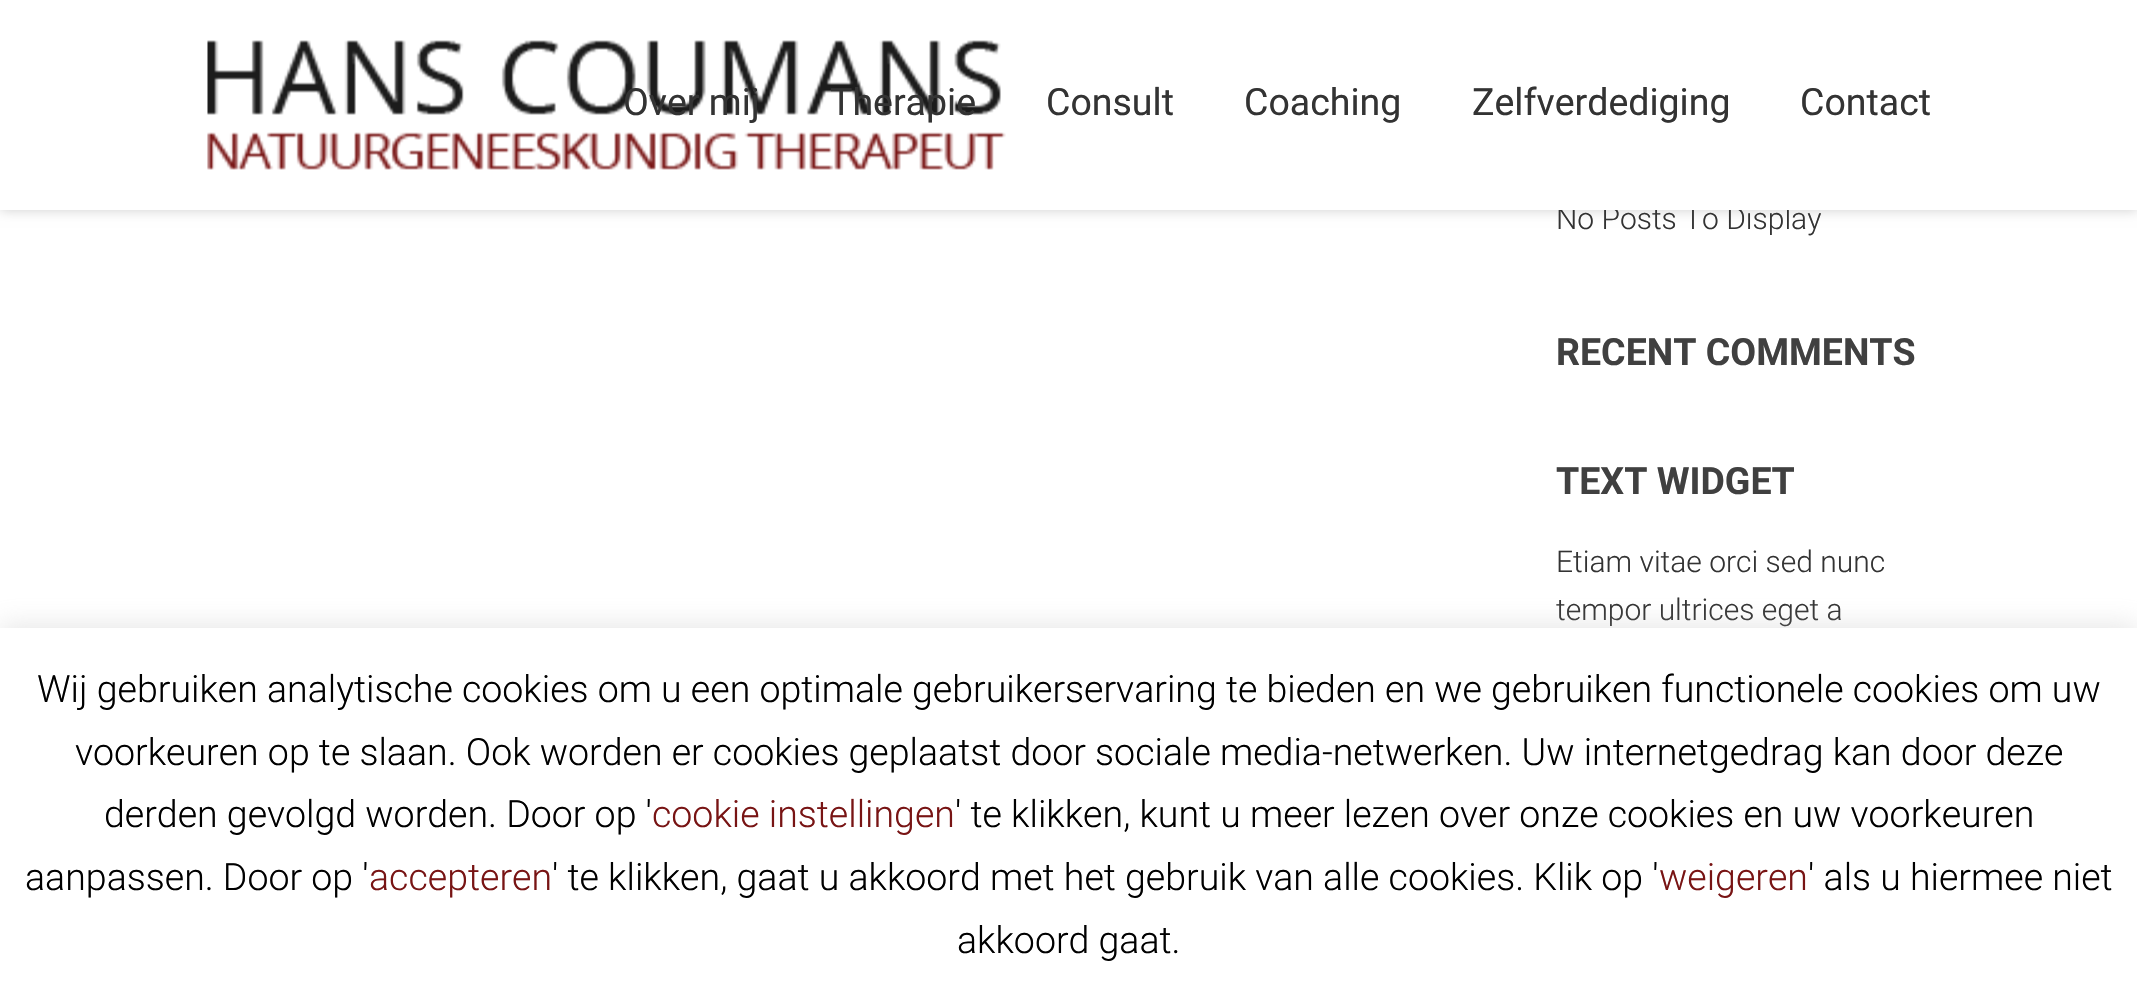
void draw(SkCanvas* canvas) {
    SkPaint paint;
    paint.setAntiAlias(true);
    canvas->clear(0xFFFFFFFF);
    paint.setColor(0x30000000);
    paint.setMaskFilter(SkMaskFilter::MakeBlur(kNormal_SkBlurStyle, 6));
    canvas->drawRect(SkRect::MakeXYWH(0, 0, 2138, 210), paint);
    paint.setMaskFilter(nullptr);
    SkFont font1(fontMgr->matchFamilyStyle("Roboto", SkFontStyle(300, SkFontStyle::kNormal_Width, SkFontStyle::kUpright_Slant)), 30);
    font1.setSubpixel(true);
    paint.setColor(0xFF333333);
    canvas->drawString("No Posts To Display", 1556, 229, font1, paint);
    paint.setColor(0xFFFFFFFF);
    canvas->drawRect(SkRect::MakeXYWH(0, 0, 2137, 210), paint);
    canvas->drawImageRect(SkImages::DeferredFromEncodedData(SkData::MakeFromFileName("img1.png")), SkRect::MakeXYWH(207, 40, 799, 130), SkSamplingOptions());
    SkFont font2(fontMgr->matchFamilyStyle("Roboto", SkFontStyle::Normal()), 37.5f);
    font2.setSubpixel(true);
    paint.setColor(0xFF333333);
    canvas->drawString("Over mij", 623, 115, font2, paint);
    canvas->drawString("Therapie", 830, 115, font2, paint);
    canvas->drawString("Consult", 1046, 115, font2, paint);
    canvas->drawString("Coaching", 1244, 115, font2, paint);
    canvas->drawString("Zelfverdediging", 1472, 115, font2, paint);
    canvas->drawString("Contact", 1800, 115, font2, paint);
    SkFont font3(fontMgr->matchFamilyStyle("Roboto", SkFontStyle::Bold()), 37.5f);
    font3.setSubpixel(true);
    paint.setColor(0xFF404040);
    canvas->drawString("RECENT COMMENTS", 1556, 365, font3, paint);
    canvas->drawString("TEXT WIDGET", 1556, 494, font3, paint);
    paint.setColor(0xFF333333);
    canvas->drawString("Etiam vitae orci sed nunc", 1556, 572, font1, paint);
    canvas->drawString("tempor ultrices eget a", 1556, 620, font1, paint);
    paint.setColor(0x4DACABAB);
    paint.setMaskFilter(SkMaskFilter::MakeBlur(kNormal_SkBlurStyle, 12.5f));
    canvas->drawRect(SkRect::MakeXYWH(0, 625, 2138, 373), paint);
    paint.setMaskFilter(nullptr);
    paint.setColor(0xFFFFFFFF);
    canvas->drawRect(SkRect::MakeXYWH(0, 628, 2137, 372), paint);
    SkFont font4(fontMgr->matchFamilyStyle("Roboto", SkFontStyle(300, SkFontStyle::kNormal_Width, SkFontStyle::kUpright_Slant)), 37.5f);
    font4.setSubpixel(true);
    paint.setColor(0xFF000000);
    canvas->drawString("Wij gebruiken analytische cookies om u een optimale gebruikerservaring te bieden en we gebruiken functionele cookies om uw", 37, 702, font4, paint);
    canvas->drawString("voorkeuren op te slaan. Ook worden er cookies geplaatst door sociale media-netwerken. Uw internetgedrag kan door deze", 75, 765, font4, paint);
    canvas->drawString("derden gevolgd worden. Door op '", 104, 827, font4, paint);
    paint.setColor(0xFF781414);
    canvas->drawString("cookie instellingen", 652, 827, font4, paint);
    paint.setColor(0xFF000000);
    canvas->drawString("' te klikken, kunt u meer lezen over onze cookies en uw voorkeuren", 955, 827, font4, paint);
    canvas->drawString("aanpassen. Door op '", 25, 890, font4, paint);
    paint.setColor(0xFF781414);
    canvas->drawString("accepteren", 369, 890, font4, paint);
    paint.setColor(0xFF000000);
    canvas->drawString("' te klikken, gaat u akkoord met het gebruik van alle cookies. Klik op '", 552, 890, font4, paint);
    paint.setColor(0xFF781414);
    canvas->drawString("weigeren", 1659, 890, font4, paint);
    paint.setColor(0xFF000000);
    canvas->drawString("' als u hiermee niet", 1808, 890, font4, paint);
    canvas->drawString("akkoord gaat.", 957, 953, font4, paint);
}
